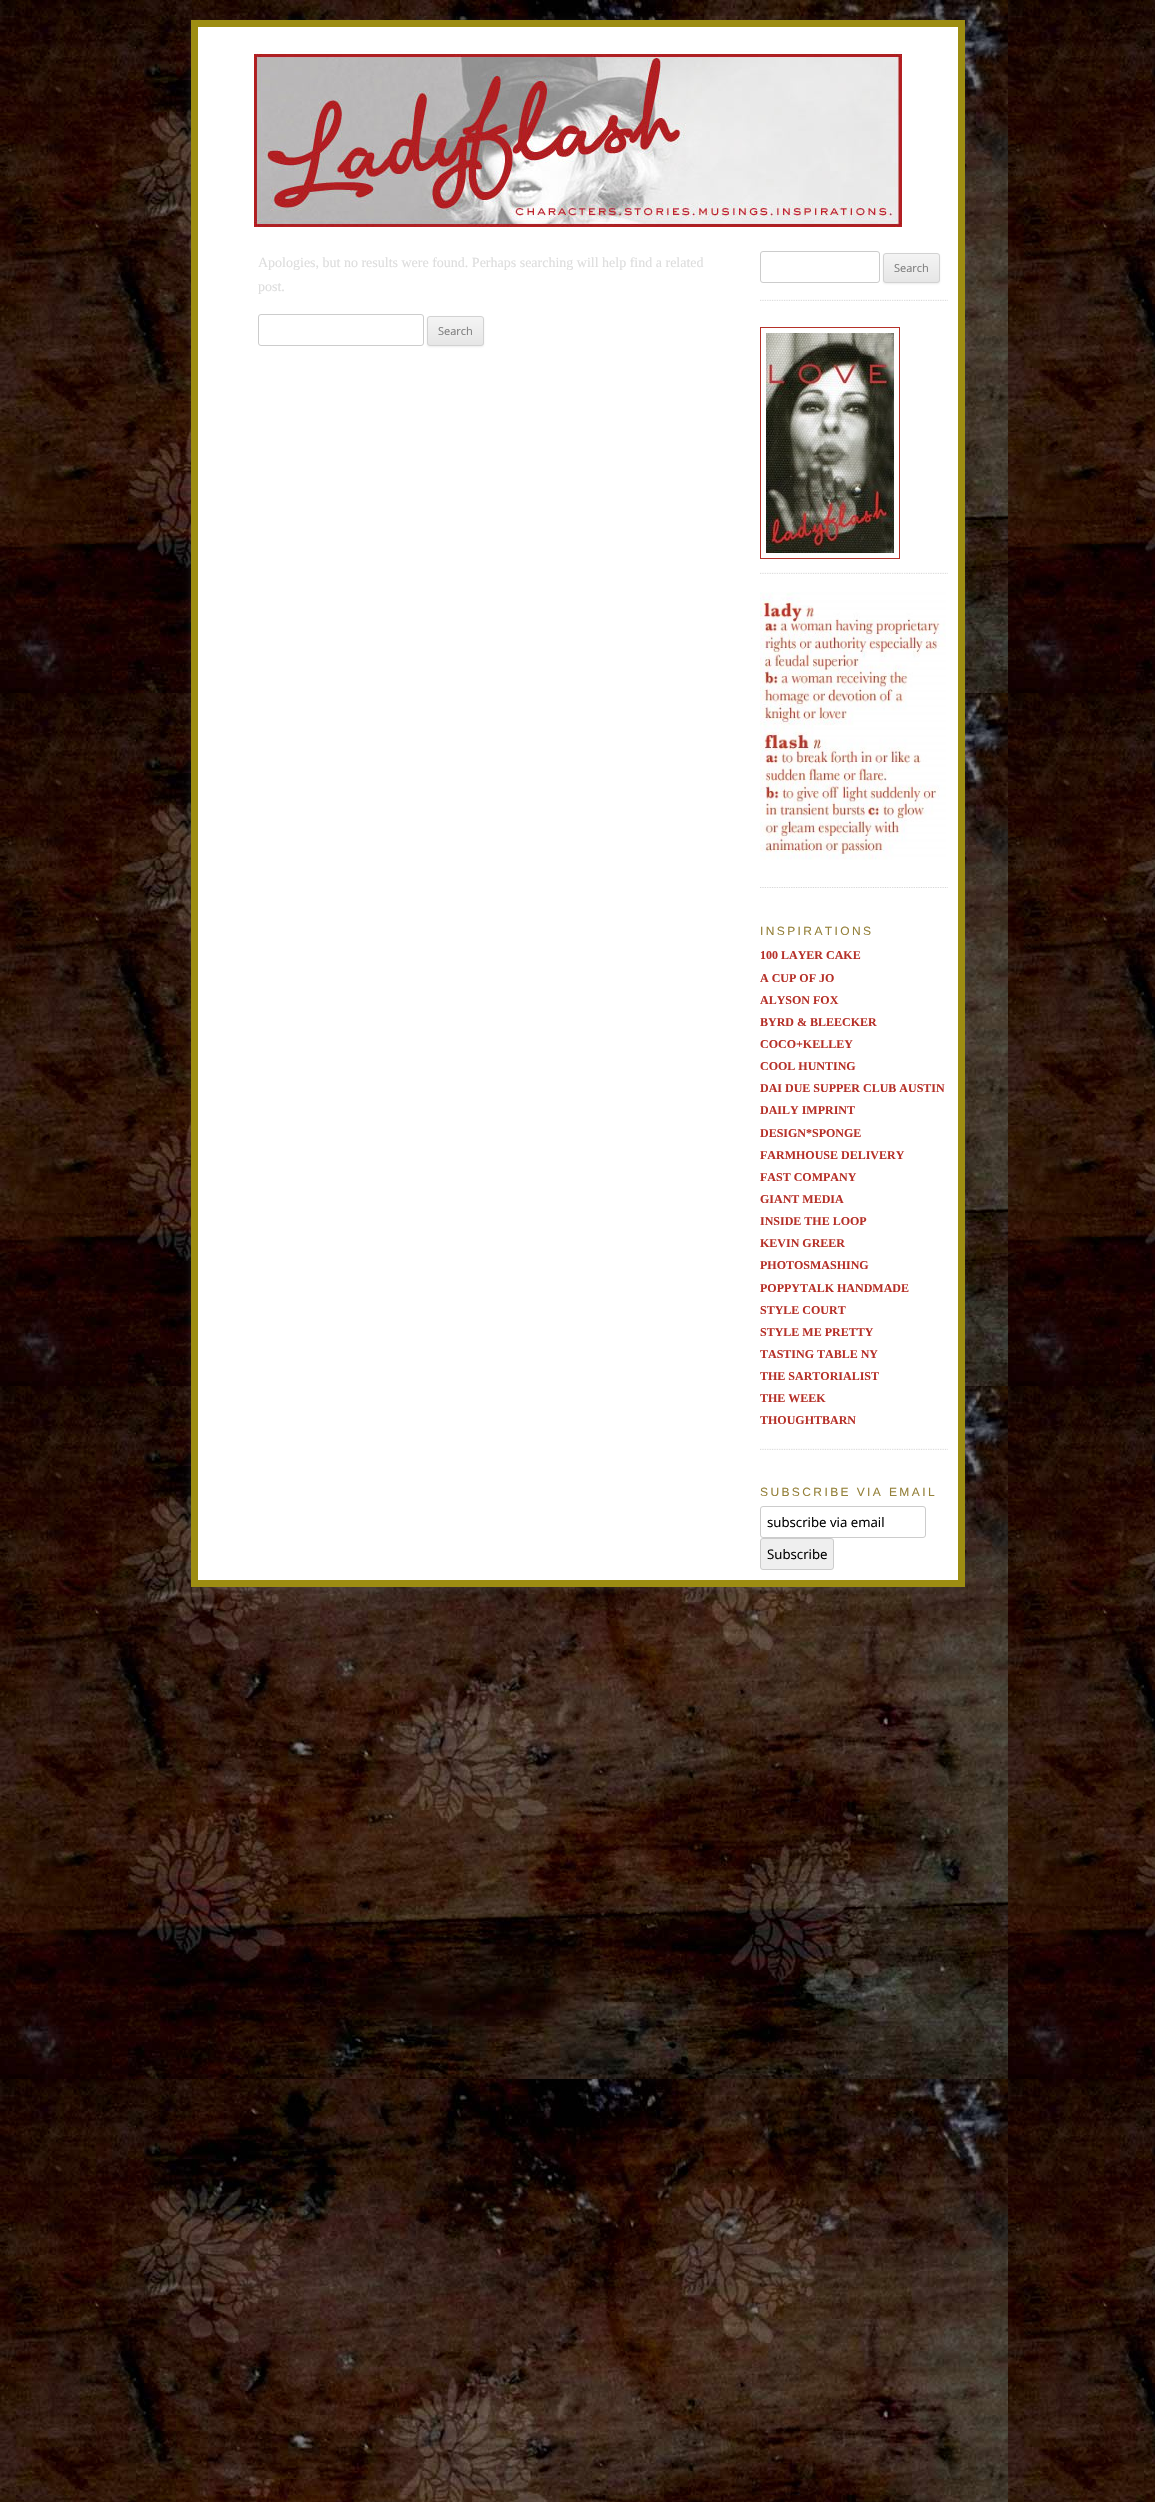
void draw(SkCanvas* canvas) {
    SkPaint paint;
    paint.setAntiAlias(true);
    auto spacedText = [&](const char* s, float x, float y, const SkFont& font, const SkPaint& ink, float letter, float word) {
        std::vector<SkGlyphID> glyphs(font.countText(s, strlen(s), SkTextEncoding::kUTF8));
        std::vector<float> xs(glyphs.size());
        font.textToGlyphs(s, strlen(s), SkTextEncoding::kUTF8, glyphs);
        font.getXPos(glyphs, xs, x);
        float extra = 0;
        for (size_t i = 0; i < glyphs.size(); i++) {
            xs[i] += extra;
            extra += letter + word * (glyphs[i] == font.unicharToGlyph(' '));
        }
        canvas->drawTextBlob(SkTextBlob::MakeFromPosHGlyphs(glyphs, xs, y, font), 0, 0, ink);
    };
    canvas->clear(0xFFFFFFFF);
    canvas->drawImageRect(SkImages::DeferredFromEncodedData(SkData::MakeFromFileName("img1.png")), SkRect::MakeXYWH(0, 0, 1155, 2502), SkSamplingOptions());
    paint.setColor(0x4D646464);
    paint.setMaskFilter(SkMaskFilter::MakeBlur(kNormal_SkBlurStyle, 3));
    canvas->drawRect(SkRect::MakeXYWH(191, 22, 774, 1567), paint);
    paint.setMaskFilter(nullptr);
    paint.setColor(0xFFFFFFFF);
    canvas->drawRect(SkRect::MakeXYWH(198, 27, 760, 1553), paint);
    canvas->drawImageRect(SkImages::DeferredFromEncodedData(SkData::MakeFromFileName("img2.png")), SkRect::MakeXYWH(254, 51, 648, 176), SkSamplingOptions());
    paint.setStyle(SkPaint::kStroke_Style);
    paint.setStrokeWidth(7);
    paint.setColor(0xFF9D8D12);
    canvas->drawRect(SkRect::MakeXYWH(194.5f, 23.5f, 767, 1560), paint);
    SkFont font1(fontMgr->matchFamilyStyle("Liberation Serif", SkFontStyle::Normal()), 14);
    font1.setSubpixel(true);
    paint.setStyle(SkPaint::kFill_Style);
    paint.setColor(0xFFDDDDDD);
    canvas->drawString("Apologies, but no results were found. Perhaps searching will help find a related", 258, 267, font1, paint);
    canvas->drawString("post.", 258, 291, font1, paint);
    paint.setStyle(SkPaint::kStroke_Style);
    paint.setStrokeWidth(1);
    paint.setColor(0xFFCCCCCC);
    canvas->drawRoundRect(SkRect::MakeXYWH(258.5f, 314.5f, 165, 31), 2.5f, 2.5f, paint);
    paint.setStyle(SkPaint::kFill_Style);
    paint.setColor(0x1A404040);
    paint.setMaskFilter(SkMaskFilter::MakeBlur(kNormal_SkBlurStyle, 1));
    canvas->drawRoundRect(SkRect::MakeXYWH(427, 317, 57, 30), 3, 3, paint);
    paint.setMaskFilter(nullptr);
    canvas->save();
    canvas->clipPath(SkPathBuilder().moveTo(430, 316).lineTo(481, 316).cubicTo(482.5f, 316, 484, 317.5f, 484, 319).lineTo(484, 343).cubicTo(484, 344.5f, 482.5f, 346, 481, 346).lineTo(430, 346).cubicTo(428.5f, 346, 427, 344.5f, 427, 343).lineTo(427, 319).cubicTo(427, 317.5f, 428.5f, 316, 430, 316).close().detach(), true);
    {
        const SkColor colors[] = {0xFFF4F4F4, 0xFFE6E6E6};
        const float stops[] = {0, 1};
        const SkPoint ends[] = {{456, 317}, {456, 345}};
        paint.setShader(SkGradientShader::MakeLinear(ends, colors, stops, 2, SkTileMode::kClamp));
        paint.setAlpha(255);
    }
    canvas->drawRect(SkRect::MakeXYWH(427, 317, 57, 28), paint);
    canvas->restore();
    paint.setStyle(SkPaint::kStroke_Style);
    paint.setShader(nullptr);
    paint.setColor(0xFFD2D2D2);
    canvas->drawRoundRect(SkRect::MakeXYWH(427.5f, 316.5f, 56, 29), 2.5f, 2.5f, paint);
    SkFont font2(fontMgr->matchFamilyStyle("Open Sans", SkFontStyle::Normal()), 11);
    font2.setSubpixel(true);
    paint.setStyle(SkPaint::kFill_Style);
    paint.setColor(0xFF7C7C7C);
    canvas->drawString("Search", 438, 335, font2, paint);
    paint.setStyle(SkPaint::kStroke_Style);
    paint.setColor(0xFFCCCCCC);
    canvas->drawRoundRect(SkRect::MakeXYWH(760.5f, 251.5f, 119, 31), 2.5f, 2.5f, paint);
    paint.setStyle(SkPaint::kFill_Style);
    paint.setColor(0x1A404040);
    paint.setMaskFilter(SkMaskFilter::MakeBlur(kNormal_SkBlurStyle, 1));
    canvas->drawRoundRect(SkRect::MakeXYWH(883, 254, 57, 30), 3, 3, paint);
    paint.setMaskFilter(nullptr);
    canvas->save();
    canvas->clipPath(SkPathBuilder().moveTo(886, 253).lineTo(937, 253).cubicTo(938.5f, 253, 940, 254.5f, 940, 256).lineTo(940, 280).cubicTo(940, 281.5f, 938.5f, 283, 937, 283).lineTo(886, 283).cubicTo(884.5f, 283, 883, 281.5f, 883, 280).lineTo(883, 256).cubicTo(883, 254.5f, 884.5f, 253, 886, 253).close().detach(), true);
    {
        const SkColor colors[] = {0xFFF4F4F4, 0xFFE6E6E6};
        const float stops[] = {0, 1};
        const SkPoint ends[] = {{912, 254}, {912, 282}};
        paint.setShader(SkGradientShader::MakeLinear(ends, colors, stops, 2, SkTileMode::kClamp));
        paint.setAlpha(255);
    }
    canvas->drawRect(SkRect::MakeXYWH(883, 254, 57, 28), paint);
    canvas->restore();
    paint.setStyle(SkPaint::kStroke_Style);
    paint.setShader(nullptr);
    paint.setColor(0xFFD2D2D2);
    canvas->drawRoundRect(SkRect::MakeXYWH(883.5f, 253.5f, 56, 29), 2.5f, 2.5f, paint);
    paint.setStyle(SkPaint::kFill_Style);
    paint.setColor(0xFF7C7C7C);
    canvas->drawString("Search", 894, 272, font2, paint);
    canvas->drawImageRect(SkImages::DeferredFromEncodedData(SkData::MakeFromFileName("img3.png")), SkRect::MakeXYWH(760, 299, 188, 2), SkSamplingOptions());
    paint.setStyle(SkPaint::kStroke_Style);
    paint.setColor(0xFFB63129);
    canvas->drawRect(SkRect::MakeXYWH(760.5f, 327.5f, 139, 231), paint);
    canvas->drawImageRect(SkImages::DeferredFromEncodedData(SkData::MakeFromFileName("img4.png")), SkRect::MakeXYWH(766, 333, 128, 220), SkSamplingOptions());
    canvas->drawImageRect(SkImages::DeferredFromEncodedData(SkData::MakeFromFileName("img3.png")), SkRect::MakeXYWH(760, 572, 188, 2), SkSamplingOptions());
    canvas->drawImageRect(SkImages::DeferredFromEncodedData(SkData::MakeFromFileName("img5.png")), SkRect::MakeXYWH(760, 592, 186, 268), SkSamplingOptions());
    canvas->drawImageRect(SkImages::DeferredFromEncodedData(SkData::MakeFromFileName("img6.png")), SkRect::MakeXYWH(760, 887, 188, 1), SkSamplingOptions());
    SkFont font3(fontMgr->matchFamilyStyle("Liberation Sans", SkFontStyle::Normal()), 12);
    font3.setSubpixel(true);
    paint.setStyle(SkPaint::kFill_Style);
    paint.setColor(0xFF95813A);
    spacedText("INSPIRATIONS", 760, 935, font3, paint, 2.4f, 0);
    SkFont font4(fontMgr->matchFamilyStyle("Liberation Serif", SkFontStyle::Bold()), 12);
    font4.setSubpixel(true);
    paint.setColor(0xFFB63129);
    canvas->drawString("100 LAYER CAKE", 760, 959, font4, paint);
    canvas->drawString("A CUP OF JO", 760, 982, font4, paint);
    canvas->drawString("ALYSON FOX", 760, 1004, font4, paint);
    canvas->drawString("BYRD & BLEECKER", 760, 1026, font4, paint);
    canvas->drawString("COCO+KELLEY", 760, 1048, font4, paint);
    canvas->drawString("COOL HUNTING", 760, 1070, font4, paint);
    canvas->drawString("DAI DUE SUPPER CLUB AUSTIN", 760, 1092, font4, paint);
    canvas->drawString("DAILY IMPRINT", 760, 1114, font4, paint);
    canvas->drawString("DESIGN*SPONGE", 760, 1137, font4, paint);
    canvas->drawString("FARMHOUSE DELIVERY", 760, 1159, font4, paint);
    canvas->drawString("FAST COMPANY", 760, 1181, font4, paint);
    canvas->drawString("GIANT MEDIA", 760, 1203, font4, paint);
    canvas->drawString("INSIDE THE LOOP", 760, 1225, font4, paint);
    canvas->drawString("KEVIN GREER", 760, 1247, font4, paint);
    canvas->drawString("PHOTOSMASHING", 760, 1269, font4, paint);
    canvas->drawString("POPPYTALK HANDMADE", 760, 1292, font4, paint);
    canvas->drawString("STYLE COURT", 760, 1314, font4, paint);
    canvas->drawString("STYLE ME PRETTY", 760, 1336, font4, paint);
    canvas->drawString("TASTING TABLE NY", 760, 1358, font4, paint);
    canvas->drawString("THE SARTORIALIST", 760, 1380, font4, paint);
    canvas->drawString("THE WEEK", 760, 1402, font4, paint);
    canvas->drawString("THOUGHTBARN", 760, 1424, font4, paint);
    canvas->drawImageRect(SkImages::DeferredFromEncodedData(SkData::MakeFromFileName("img3.png")), SkRect::MakeXYWH(760, 1448, 188, 2), SkSamplingOptions());
    paint.setColor(0xFF95813A);
    spacedText("SUBSCRIBE VIA EMAIL", 760, 1496, font3, paint, 2.4f, 0);
    paint.setStyle(SkPaint::kStroke_Style);
    paint.setColor(0xFFCCCCCC);
    canvas->drawRoundRect(SkRect::MakeXYWH(760.5f, 1506.5f, 165, 31), 2.5f, 2.5f, paint);
    SkFont font5(fontMgr->matchFamilyStyle("Open Sans", SkFontStyle::Normal()), 13.25f);
    font5.setSubpixel(true);
    paint.setStyle(SkPaint::kFill_Style);
    paint.setColor(0xFF000000);
    canvas->drawString("subscribe via email", 767, 1527, font5, paint);
    paint.setColor(0xFFEFEFEF);
    canvas->drawRoundRect(SkRect::MakeXYWH(760.5f, 1538.5f, 73, 31), 2.5f, 2.5f, paint);
    paint.setStyle(SkPaint::kStroke_Style);
    paint.setColor(0xFFCCCCCC);
    canvas->drawRoundRect(SkRect::MakeXYWH(760.5f, 1538.5f, 73, 31), 2.5f, 2.5f, paint);
    paint.setStyle(SkPaint::kFill_Style);
    paint.setColor(0xFF000000);
    canvas->drawString("Subscribe", 767, 1559, font5, paint);
}
